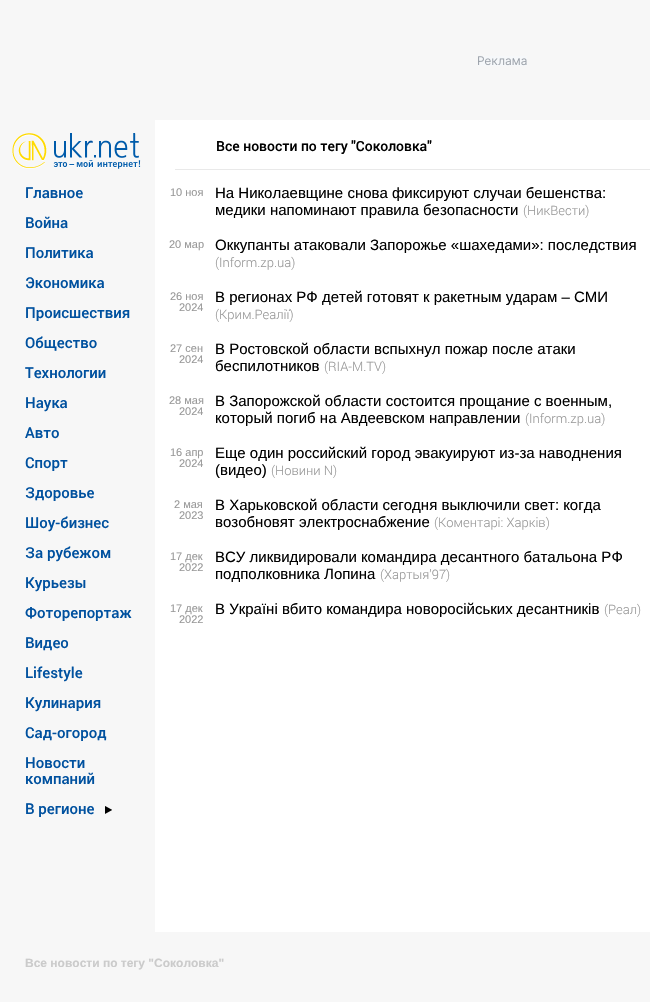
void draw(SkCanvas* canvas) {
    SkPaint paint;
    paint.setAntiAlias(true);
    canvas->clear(0xFFF7F7F7);
    canvas->drawImageRect(SkImages::DeferredFromEncodedData(SkData::MakeFromFileName("img1.png")), SkRect::MakeXYWH(478, 56, 49, 10), SkSamplingOptions());
    canvas->drawImageRect(SkImages::DeferredFromEncodedData(SkData::MakeFromFileName("img2.png")), SkRect::MakeXYWH(12, 133, 129, 36), SkSamplingOptions());
    SkFont font1(fontMgr->matchFamilyStyle("Roboto", SkFontStyle(500, SkFontStyle::kNormal_Width, SkFontStyle::kUpright_Slant)), 15);
    font1.setSubpixel(true);
    paint.setColor(0xFF00519F);
    canvas->drawString("Главное", 25, 198, font1, paint);
    canvas->drawString("Война", 25, 228, font1, paint);
    canvas->drawString("Политика", 25, 258, font1, paint);
    canvas->drawString("Экономика", 25, 288, font1, paint);
    canvas->drawString("Происшествия", 25, 318, font1, paint);
    canvas->drawString("Общество", 25, 348, font1, paint);
    canvas->drawString("Технологии", 25, 378, font1, paint);
    canvas->drawString("Наука", 25, 408, font1, paint);
    canvas->drawString("Авто", 25, 438, font1, paint);
    canvas->drawString("Спорт", 25, 468, font1, paint);
    canvas->drawString("Здоровье", 25, 498, font1, paint);
    canvas->drawString("Шоу-бизнес", 25, 528, font1, paint);
    canvas->drawString("За рубежом", 25, 558, font1, paint);
    canvas->drawString("Курьезы", 25, 588, font1, paint);
    canvas->drawString("Фоторепортаж", 25, 618, font1, paint);
    canvas->drawString("Видео", 25, 648, font1, paint);
    canvas->drawString("Lifestyle", 25, 678, font1, paint);
    canvas->drawString("Кулинария", 25, 708, font1, paint);
    canvas->drawString("Сад-огород", 25, 738, font1, paint);
    canvas->drawString("Новости", 25, 768, font1, paint);
    canvas->drawString("компаний", 25, 784, font1, paint);
    canvas->drawString("В регионе", 25, 814, font1, paint);
    canvas->drawImageRect(SkImages::DeferredFromEncodedData(SkData::MakeFromFileName("img3.png")), SkRect::MakeXYWH(105, 806, 7, 8), SkSamplingOptions());
    paint.setColor(0xFFFFFFFF);
    canvas->drawRect(SkRect::MakeXYWH(155, 120, 495, 812), paint);
    paint.setColor(0xFFE9E9E9);
    canvas->drawRect(SkRect::MakeXYWH(175, 169, 475, 1), paint);
    SkFont font2(fontMgr->matchFamilyStyle("Roboto", SkFontStyle(500, SkFontStyle::kNormal_Width, SkFontStyle::kUpright_Slant)), 14);
    font2.setSubpixel(true);
    paint.setColor(0xFF000000);
    canvas->drawString("Все новости по тегу \"Соколовка\"", 216, 151, font2, paint);
    SkFont font3(fontMgr->matchFamilyStyle("Liberation Sans", SkFontStyle::Normal()), 11);
    font3.setSubpixel(true);
    paint.setColor(0xFF999999);
    canvas->drawString("10 ноя", 170, 196, font3, paint);
    SkFont font4(fontMgr->matchFamilyStyle("Liberation Sans", SkFontStyle::Normal()), 15);
    font4.setSubpixel(true);
    paint.setColor(0xFF000000);
    canvas->drawString("На Николаевщине снова фиксируют случаи бешенства:", 215, 198, font4, paint);
    canvas->drawString("медики напоминают правила безопасности", 215, 215, font4, paint);
    SkFont font5(fontMgr->matchFamilyStyle("Roboto", SkFontStyle(300, SkFontStyle::kNormal_Width, SkFontStyle::kUpright_Slant)), 13);
    font5.setSubpixel(true);
    paint.setColor(0xFF999999);
    canvas->drawString("(НикВести)", 523, 215, font5, paint);
    canvas->drawString("20 мар", 169, 248, font3, paint);
    paint.setColor(0xFF000000);
    canvas->drawString("Оккупанты атаковали Запорожье «шахедами»: последствия", 215, 250, font4, paint);
    paint.setColor(0xFF999999);
    canvas->drawString("(Inform.zp.ua)", 215, 267, font5, paint);
    canvas->drawString("26 ноя", 170, 300, font3, paint);
    canvas->drawString("2024", 179, 311, font3, paint);
    paint.setColor(0xFF000000);
    canvas->drawString("В регионах РФ детей готовят к ракетным ударам – СМИ", 215, 302, font4, paint);
    paint.setColor(0xFF999999);
    canvas->drawString("(Крим.Реалії)", 215, 319, font5, paint);
    canvas->drawString("27 сен", 170, 352, font3, paint);
    canvas->drawString("2024", 179, 363, font3, paint);
    paint.setColor(0xFF000000);
    canvas->drawString("В Ростовской области вспыхнул пожар после атаки", 215, 354, font4, paint);
    canvas->drawString("беспилотников", 215, 371, font4, paint);
    paint.setColor(0xFF999999);
    canvas->drawString("(RIA-M.TV)", 324, 371, font5, paint);
    canvas->drawString("28 мая", 169, 404, font3, paint);
    canvas->drawString("2024", 179, 415, font3, paint);
    paint.setColor(0xFF000000);
    canvas->drawString("В Запорожской области состоится прощание с военным,", 215, 406, font4, paint);
    canvas->drawString("который погиб на Авдеевском направлении", 215, 423, font4, paint);
    paint.setColor(0xFF999999);
    canvas->drawString("(Inform.zp.ua)", 525, 423, font5, paint);
    canvas->drawString("16 апр", 170, 456, font3, paint);
    canvas->drawString("2024", 179, 467, font3, paint);
    paint.setColor(0xFF000000);
    canvas->drawString("Еще один российский город эвакуируют из-за наводнения", 215, 458, font4, paint);
    canvas->drawString("(видео)", 215, 475, font4, paint);
    paint.setColor(0xFF999999);
    canvas->drawString("(Новини N)", 271, 475, font5, paint);
    canvas->drawString("2 мая", 174, 508, font3, paint);
    canvas->drawString("2023", 179, 519, font3, paint);
    paint.setColor(0xFF000000);
    canvas->drawString("В Харьковской области сегодня выключили свет: когда", 215, 510, font4, paint);
    canvas->drawString("возобновят электроснабжение", 215, 527, font4, paint);
    paint.setColor(0xFF999999);
    canvas->drawString("(Коментарі: Харків)", 434, 527, font5, paint);
    canvas->drawString("17 дек", 170, 560, font3, paint);
    canvas->drawString("2022", 179, 571, font3, paint);
    paint.setColor(0xFF000000);
    canvas->drawString("ВСУ ликвидировали командира десантного батальона РФ", 215, 562, font4, paint);
    canvas->drawString("подполковника Лопина", 215, 579, font4, paint);
    paint.setColor(0xFF999999);
    canvas->drawString("(Хартыя’97)", 380, 579, font5, paint);
    canvas->drawString("17 дек", 170, 612, font3, paint);
    canvas->drawString("2022", 179, 623, font3, paint);
    paint.setColor(0xFF000000);
    canvas->drawString("В Україні вбито командира новоросійських десантників", 215, 614, font4, paint);
    paint.setColor(0xFF999999);
    canvas->drawString("(Реал)", 604, 614, font5, paint);
    SkFont font6(fontMgr->matchFamilyStyle("Liberation Sans", SkFontStyle::Bold()), 12);
    font6.setSubpixel(true);
    paint.setColor(0xFFCBCBCB);
    canvas->drawString("Все новости по тегу \"Соколовка\"", 25, 967, font6, paint);
}
